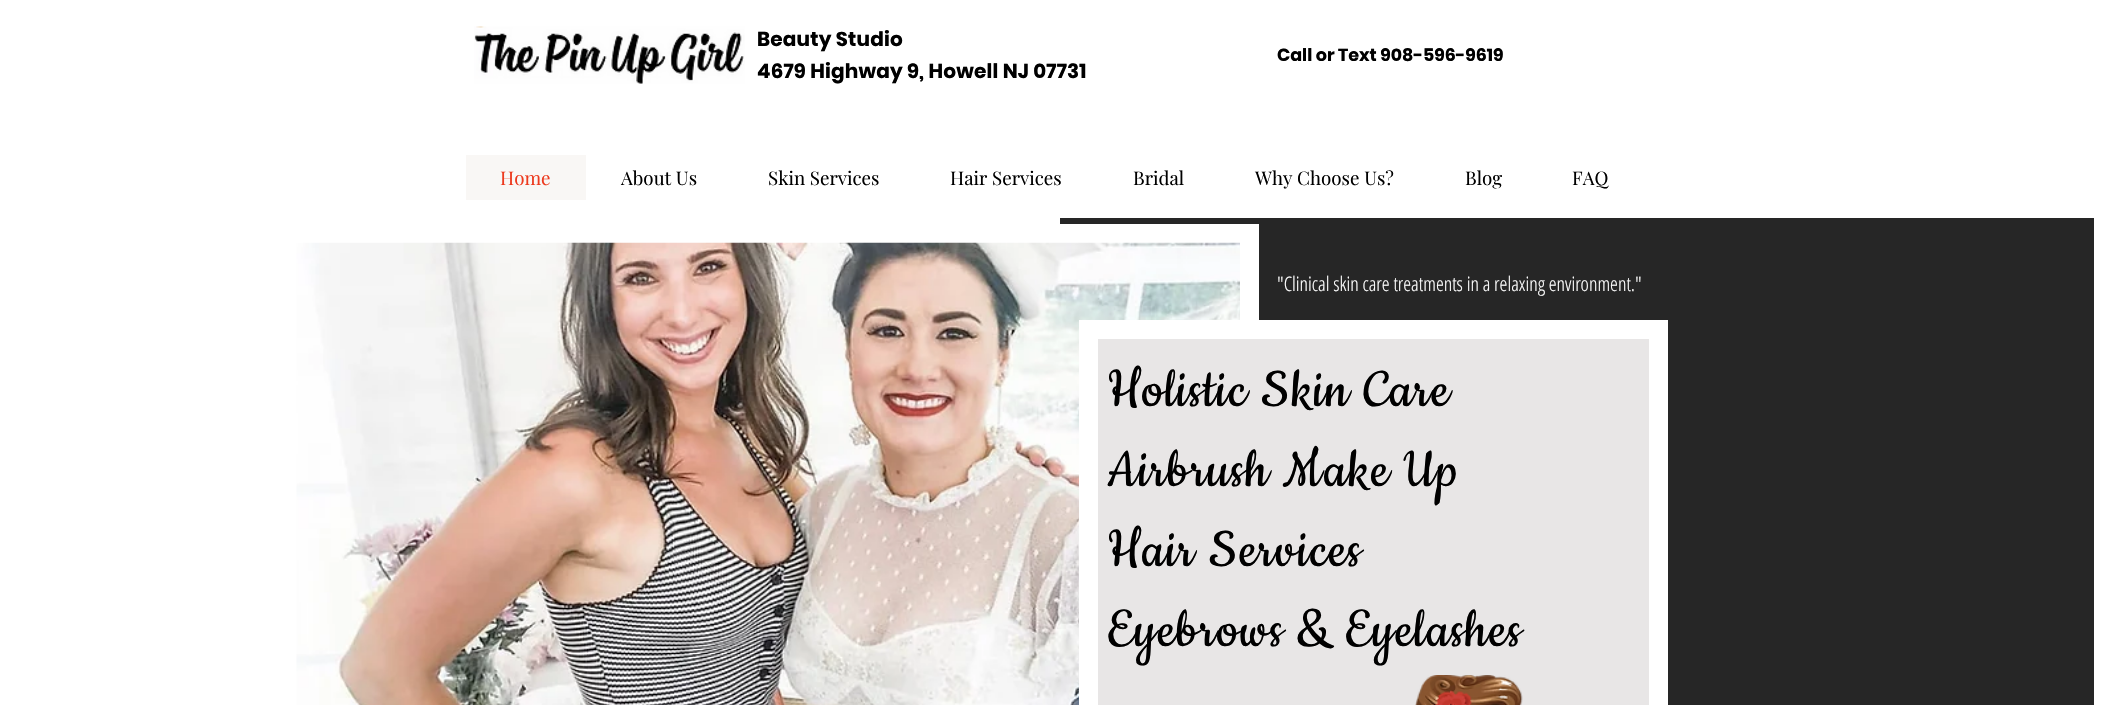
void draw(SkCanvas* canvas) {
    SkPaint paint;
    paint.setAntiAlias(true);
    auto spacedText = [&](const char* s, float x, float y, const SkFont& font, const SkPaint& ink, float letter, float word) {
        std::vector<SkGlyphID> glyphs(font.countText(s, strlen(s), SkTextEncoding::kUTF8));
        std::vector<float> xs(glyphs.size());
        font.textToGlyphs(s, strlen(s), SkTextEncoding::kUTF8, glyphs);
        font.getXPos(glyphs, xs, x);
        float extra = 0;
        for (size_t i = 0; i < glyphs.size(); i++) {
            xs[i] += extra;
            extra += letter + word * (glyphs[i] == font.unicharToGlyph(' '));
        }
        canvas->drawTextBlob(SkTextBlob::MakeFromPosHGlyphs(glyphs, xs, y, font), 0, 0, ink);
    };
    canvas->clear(0xFFFFFFFF);
    canvas->drawImageRect(SkImages::DeferredFromEncodedData(SkData::MakeFromFileName("img1.png")), SkRect::MakeXYWH(474, 26, 271, 58), SkSamplingOptions());
    SkFont font1(fontMgr->matchFamilyStyle("Poppins", SkFontStyle::Bold()), 20);
    font1.setSubpixel(true);
    paint.setColor(0xFF000000);
    spacedText("Beauty Studio", 757, 46, font1, paint, 0.2f, 0);
    spacedText("4679 Highway 9, Howell NJ 07731", 757, 78, font1, paint, 0.2f, 0);
    SkFont font2(fontMgr->matchFamilyStyle("Poppins", SkFontStyle::Bold()), 17.5f);
    font2.setSubpixel(true);
    canvas->drawString("Call or Text 908-596-9619", 1277, 61, font2, paint);
    paint.setColor(0xFFF9F7F5);
    canvas->drawRect(SkRect::MakeXYWH(466, 155, 120, 45), paint);
    SkFont font3(fontMgr->matchFamilyStyle("Playfair Display", SkFontStyle::Normal()), 18.75f);
    font3.setSubpixel(true);
    paint.setColor(0xFFED3A1E);
    canvas->drawString("Home", 500, 185, font3, paint);
    paint.setColor(0xFF000000);
    canvas->drawString("About Us", 621, 185, font3, paint);
    canvas->drawString("Skin Services", 768, 185, font3, paint);
    canvas->drawString("Hair Services", 950, 185, font3, paint);
    canvas->drawString("Bridal", 1133, 185, font3, paint);
    canvas->drawString("Why Choose Us?", 1255, 185, font3, paint);
    canvas->drawString("Blog", 1465, 185, font3, paint);
    canvas->drawString("FAQ", 1572, 185, font3, paint);
    paint.setColor(0xFF262626);
    canvas->drawRect(SkRect::MakeXYWH(1060, 218, 1034, 487), paint);
    paint.setColor(0xFFFFFFFF);
    canvas->drawRect(SkRect::MakeXYWH(1060, 224, 199, 481), paint);
    canvas->drawImageRect(SkImages::DeferredFromEncodedData(SkData::MakeFromFileName("img2.png")), SkRect::MakeXYWH(296, 242, 944, 463), SkSamplingOptions());
    SkFont font4(fontMgr->matchFamilyStyle("Open Sans Condensed", SkFontStyle(300, SkFontStyle::kNormal_Width, SkFontStyle::kUpright_Slant)), 20);
    font4.setSubpixel(true);
    canvas->drawString("\"Clinical skin care treatments in a relaxing environment.\"", 1277, 291, font4, paint);
    paint.setColor(0xFFE8E6E6);
    canvas->drawRect(SkRect::MakeXYWH(1088.5f, 329.5f, 570, 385), paint);
    paint.setStyle(SkPaint::kStroke_Style);
    paint.setStrokeWidth(19);
    paint.setColor(0xFFFFFFFF);
    canvas->drawRect(SkRect::MakeXYWH(1088.5f, 329.5f, 570, 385), paint);
    SkFont font5(fontMgr->matchFamilyStyle("Cookie", SkFontStyle::Normal()), 61.25f);
    font5.setSubpixel(true);
    paint.setStyle(SkPaint::kFill_Style);
    paint.setColor(0xFF000000);
    spacedText("Holistic Skin Care", 1107, 406, font5, paint, 1.25f, 0);
    spacedText("Airbrush Make Up", 1107, 486, font5, paint, 1.25f, 0);
    spacedText("Hair Services", 1107, 566, font5, paint, 1.25f, 0);
    spacedText("Eyebrows & Eyelashes", 1107, 646, font5, paint, 1.25f, 0);
    canvas->drawImageRect(SkImages::DeferredFromEncodedData(SkData::MakeFromFileName("img3.png")), SkRect::MakeXYWH(1415, 675, 108, 30), SkSamplingOptions());
}
